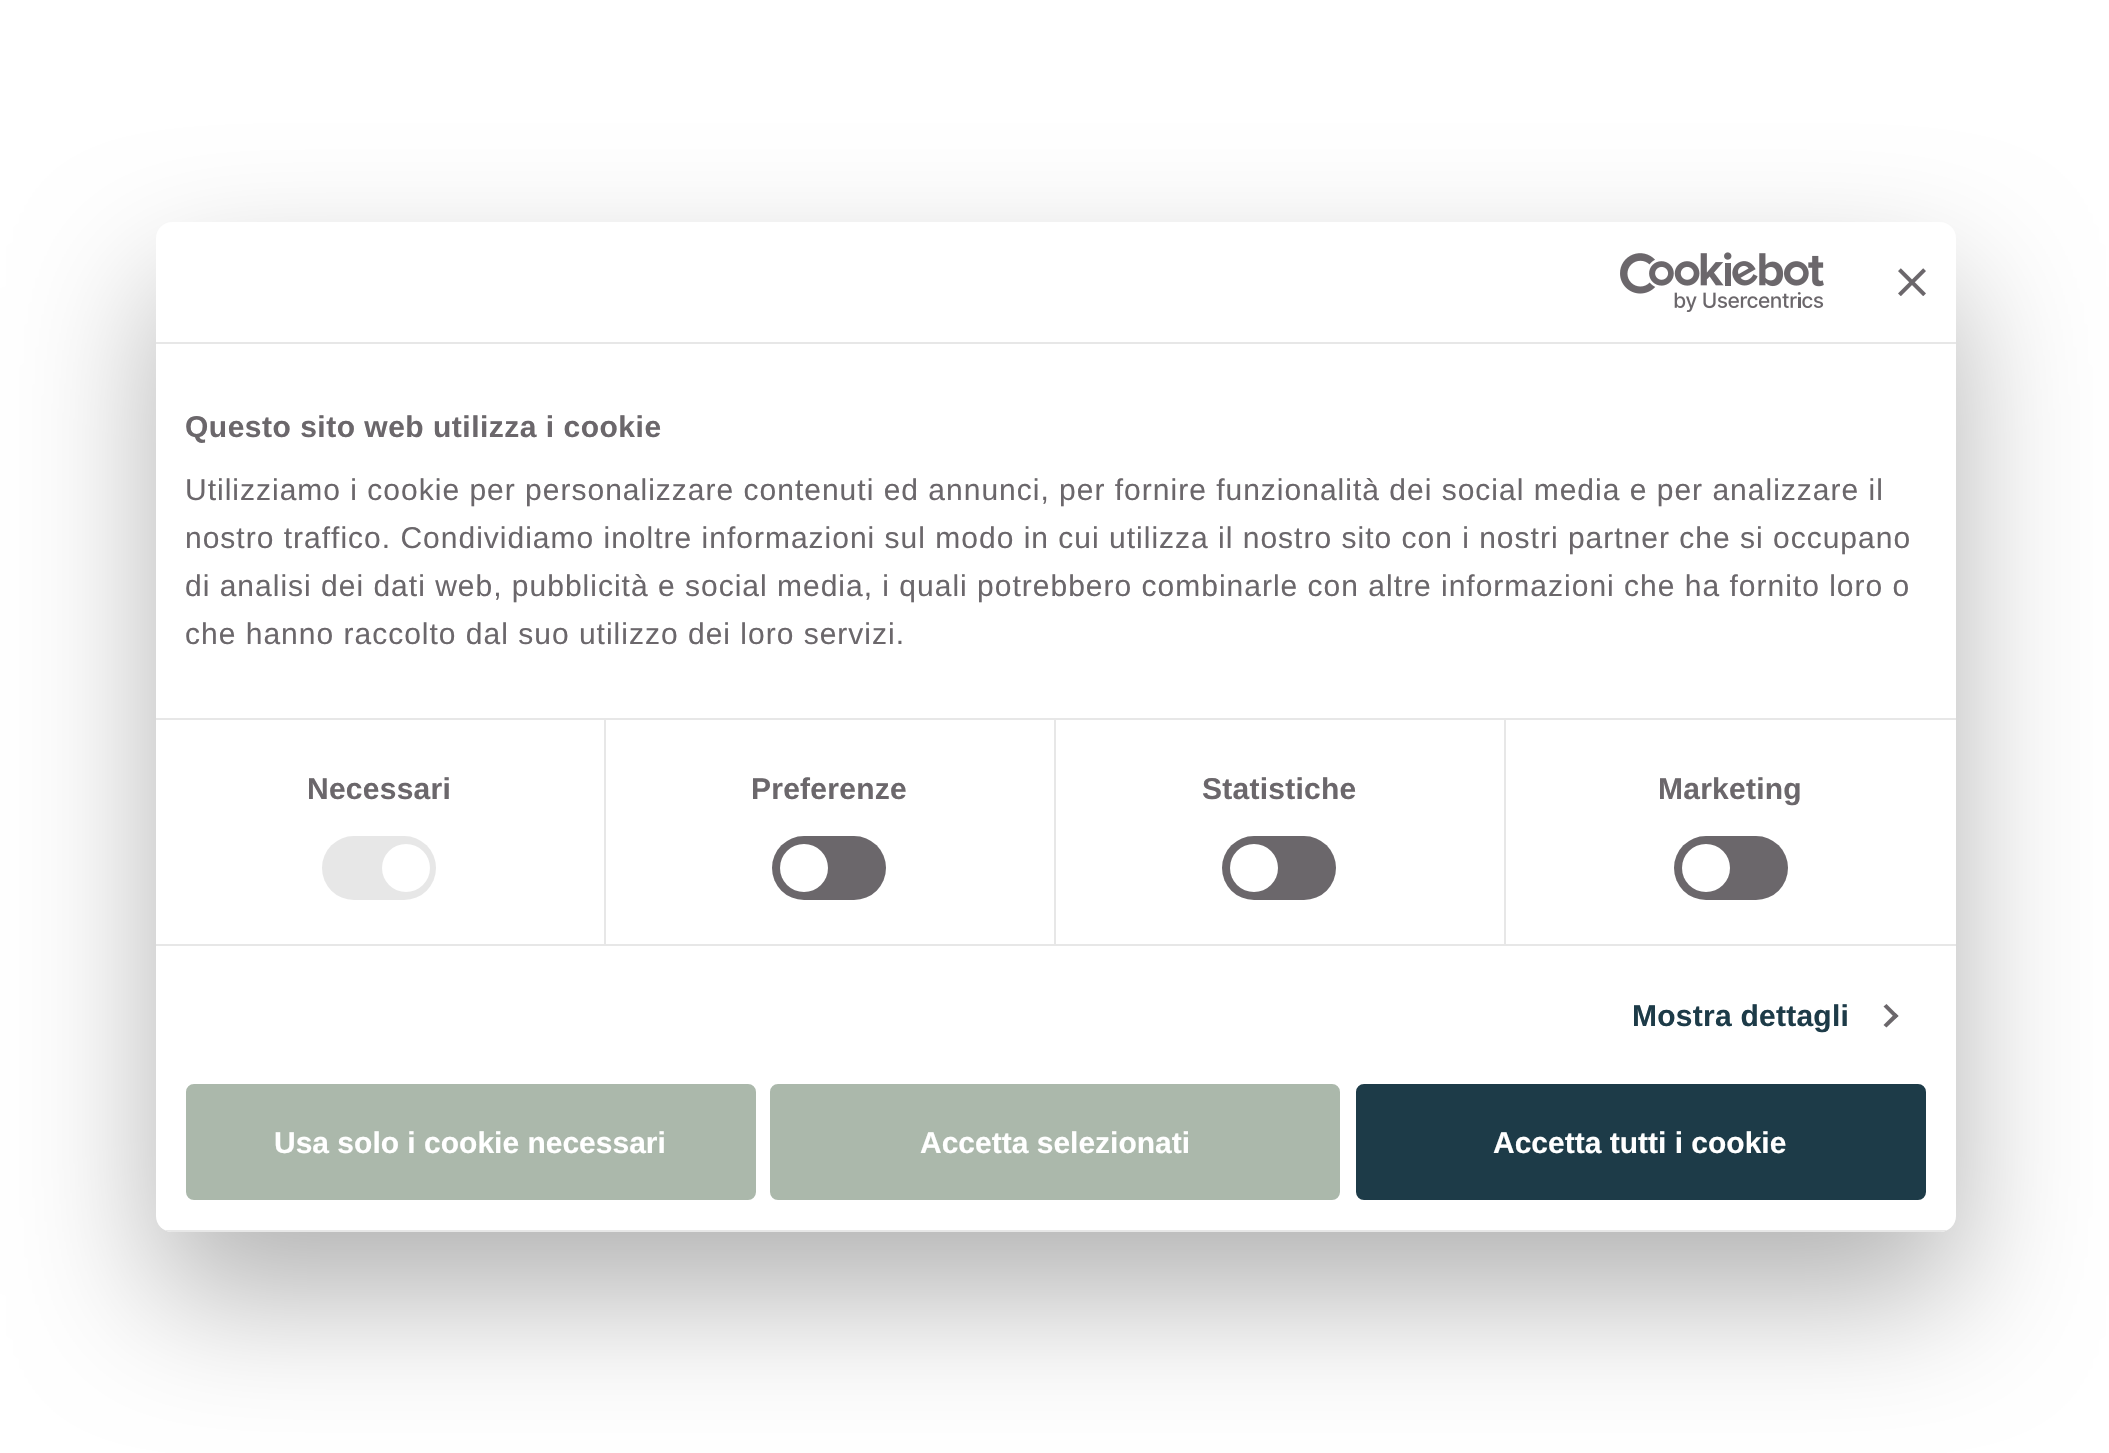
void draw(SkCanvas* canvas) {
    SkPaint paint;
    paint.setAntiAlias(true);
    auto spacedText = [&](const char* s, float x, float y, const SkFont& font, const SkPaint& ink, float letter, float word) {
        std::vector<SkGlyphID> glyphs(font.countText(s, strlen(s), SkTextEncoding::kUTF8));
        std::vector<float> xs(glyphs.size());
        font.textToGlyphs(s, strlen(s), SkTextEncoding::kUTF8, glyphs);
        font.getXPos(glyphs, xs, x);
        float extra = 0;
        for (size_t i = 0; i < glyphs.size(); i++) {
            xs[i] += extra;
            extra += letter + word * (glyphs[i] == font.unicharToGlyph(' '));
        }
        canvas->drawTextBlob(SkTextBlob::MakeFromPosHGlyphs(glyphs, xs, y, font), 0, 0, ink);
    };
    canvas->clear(0xFFFFFFFF);
    paint.setColor(0x4D000000);
    paint.setMaskFilter(SkMaskFilter::MakeBlur(kNormal_SkBlurStyle, 68));
    canvas->drawRoundRect(SkRect::MakeXYWH(156, 286, 1800, 1010), 16, 16, paint);
    paint.setMaskFilter(nullptr);
    paint.setColor(0xFFFFFFFF);
    canvas->drawRoundRect(SkRect::MakeXYWH(156, 222, 1800, 1010), 16, 16, paint);
    paint.setColor(0xFFE7E7E7);
    canvas->drawRect(SkRect::MakeXYWH(156, 342, 1800, 2), paint);
    canvas->drawImageRect(SkImages::DeferredFromEncodedData(SkData::MakeFromFileName("img1.png")), SkRect::MakeXYWH(1620, 252, 204, 60), SkSamplingOptions());
    canvas->drawImageRect(SkImages::DeferredFromEncodedData(SkData::MakeFromFileName("img2.png")), SkRect::MakeXYWH(1898, 268, 28, 28), SkSamplingOptions());
    canvas->drawRect(SkRect::MakeXYWH(156, 718, 1800, 2), paint);
    SkFont font1(fontMgr->matchFamilyStyle("Liberation Sans", SkFontStyle::Bold()), 30);
    font1.setSubpixel(true);
    paint.setColor(0xFF6B676B);
    spacedText("Questo sito web utilizza i cookie", 185, 437, font1, paint, 0.5f, 0);
    SkFont font2(fontMgr->matchFamilyStyle("Liberation Sans", SkFontStyle::Normal()), 30);
    font2.setSubpixel(true);
    spacedText("Utilizziamo i cookie per personalizzare contenuti ed annunci, per fornire funzionalità dei social media e per analizzare il", 185, 500, font2, paint, 1, 0);
    spacedText("nostro traffico. Condividiamo inoltre informazioni sul modo in cui utilizza il nostro sito con i nostri partner che si occupano", 185, 548, font2, paint, 1, 0);
    spacedText("di analisi dei dati web, pubblicità e social media, i quali potrebbero combinarle con altre informazioni che ha fornito loro o", 185, 596, font2, paint, 1, 0);
    spacedText("che hanno raccolto dal suo utilizzo dei loro servizi.", 185, 644, font2, paint, 1, 0);
    paint.setColor(0xFFE7E7E7);
    canvas->drawRect(SkRect::MakeXYWH(156, 944, 1800, 2), paint);
    canvas->drawRect(SkRect::MakeXYWH(604, 720, 2, 224), paint);
    paint.setColor(0xFF6B676B);
    spacedText("Necessari", 307, 799, font1, paint, 0.25f, 0);
    paint.setColor(0xFFE7E7E7);
    canvas->drawRoundRect(SkRect::MakeXYWH(322, 836, 114, 64), 32, 32, paint);
    paint.setColor(0xFFFFFFFF);
    canvas->drawCircle(406, 868, 24, paint);
    paint.setColor(0xFFE7E7E7);
    canvas->drawRect(SkRect::MakeXYWH(1054, 720, 2, 224), paint);
    paint.setColor(0xFF6B676B);
    spacedText("Preferenze", 751, 799, font1, paint, 0.25f, 0);
    canvas->drawRoundRect(SkRect::MakeXYWH(772, 836, 114, 64), 32, 32, paint);
    paint.setColor(0xFFFFFFFF);
    canvas->drawCircle(804, 868, 24, paint);
    paint.setColor(0xFFE7E7E7);
    canvas->drawRect(SkRect::MakeXYWH(1504, 720, 2, 224), paint);
    paint.setColor(0xFF6B676B);
    spacedText("Statistiche", 1202, 799, font1, paint, 0.25f, 0);
    canvas->drawRoundRect(SkRect::MakeXYWH(1222, 836, 114, 64), 32, 32, paint);
    paint.setColor(0xFFFFFFFF);
    canvas->drawCircle(1254, 868, 24, paint);
    paint.setColor(0xFF6B676B);
    spacedText("Marketing", 1658, 799, font1, paint, 0.25f, 0);
    canvas->drawRoundRect(SkRect::MakeXYWH(1674, 836, 114, 64), 32, 32, paint);
    paint.setColor(0xFFFFFFFF);
    canvas->drawCircle(1706, 868, 24, paint);
    paint.setColor(0xFF1D3B48);
    spacedText("Mostra dettagli", 1632, 1026, font1, paint, 0.25f, 0);
    paint.setColor(0xFF6B676B);
    canvas->drawPath(SkPathBuilder().moveTo(1886.5f, 1004).lineTo(1898.5f, 1016).lineTo(1895.5f, 1018.5f).lineTo(1883.5f, 1006.5f).close().detach(), paint);
    canvas->drawPath(SkPathBuilder().moveTo(1895.5f, 1013).lineTo(1898.5f, 1016).lineTo(1886.5f, 1027.5f).lineTo(1883.5f, 1025).close().detach(), paint);
    canvas->save();
    canvas->clipPath(SkPathBuilder().moveTo(172, 222).lineTo(1940, 222).cubicTo(1949, 222, 1956, 229, 1956, 238).lineTo(1956, 1216).cubicTo(1956, 1225, 1949, 1232, 1940, 1232).lineTo(172, 1232).cubicTo(163, 1232, 156, 1225, 156, 1216).lineTo(156, 238).cubicTo(156, 229, 163, 222, 172, 222).close().detach(), true);
    paint.setColor(0xFFE7E7E7);
    canvas->drawRect(SkRect::MakeXYWH(156, 1230, 1800, 2), paint);
    canvas->restore();
    paint.setColor(0xFFABB8AB);
    canvas->drawRoundRect(SkRect::MakeXYWH(188, 1086, 566, 112), 6, 6, paint);
    paint.setStyle(SkPaint::kStroke_Style);
    paint.setStrokeWidth(4);
    canvas->drawRoundRect(SkRect::MakeXYWH(188, 1086, 566, 112), 6, 6, paint);
    paint.setStyle(SkPaint::kFill_Style);
    paint.setColor(0xFFFFFFFF);
    canvas->drawString("Usa solo i cookie necessari", 274, 1153, font1, paint);
    paint.setColor(0xFFABB8AB);
    canvas->drawRoundRect(SkRect::MakeXYWH(772, 1086, 566, 112), 6, 6, paint);
    paint.setStyle(SkPaint::kStroke_Style);
    canvas->drawRoundRect(SkRect::MakeXYWH(772, 1086, 566, 112), 6, 6, paint);
    paint.setStyle(SkPaint::kFill_Style);
    paint.setColor(0xFFFFFFFF);
    canvas->drawString("Accetta selezionati", 920, 1153, font1, paint);
    paint.setColor(0xFF1D3B48);
    canvas->drawRoundRect(SkRect::MakeXYWH(1358, 1086, 566, 112), 6, 6, paint);
    paint.setStyle(SkPaint::kStroke_Style);
    canvas->drawRoundRect(SkRect::MakeXYWH(1358, 1086, 566, 112), 6, 6, paint);
    paint.setStyle(SkPaint::kFill_Style);
    paint.setColor(0xFFFFFFFF);
    canvas->drawString("Accetta tutti i cookie", 1493, 1153, font1, paint);
}
